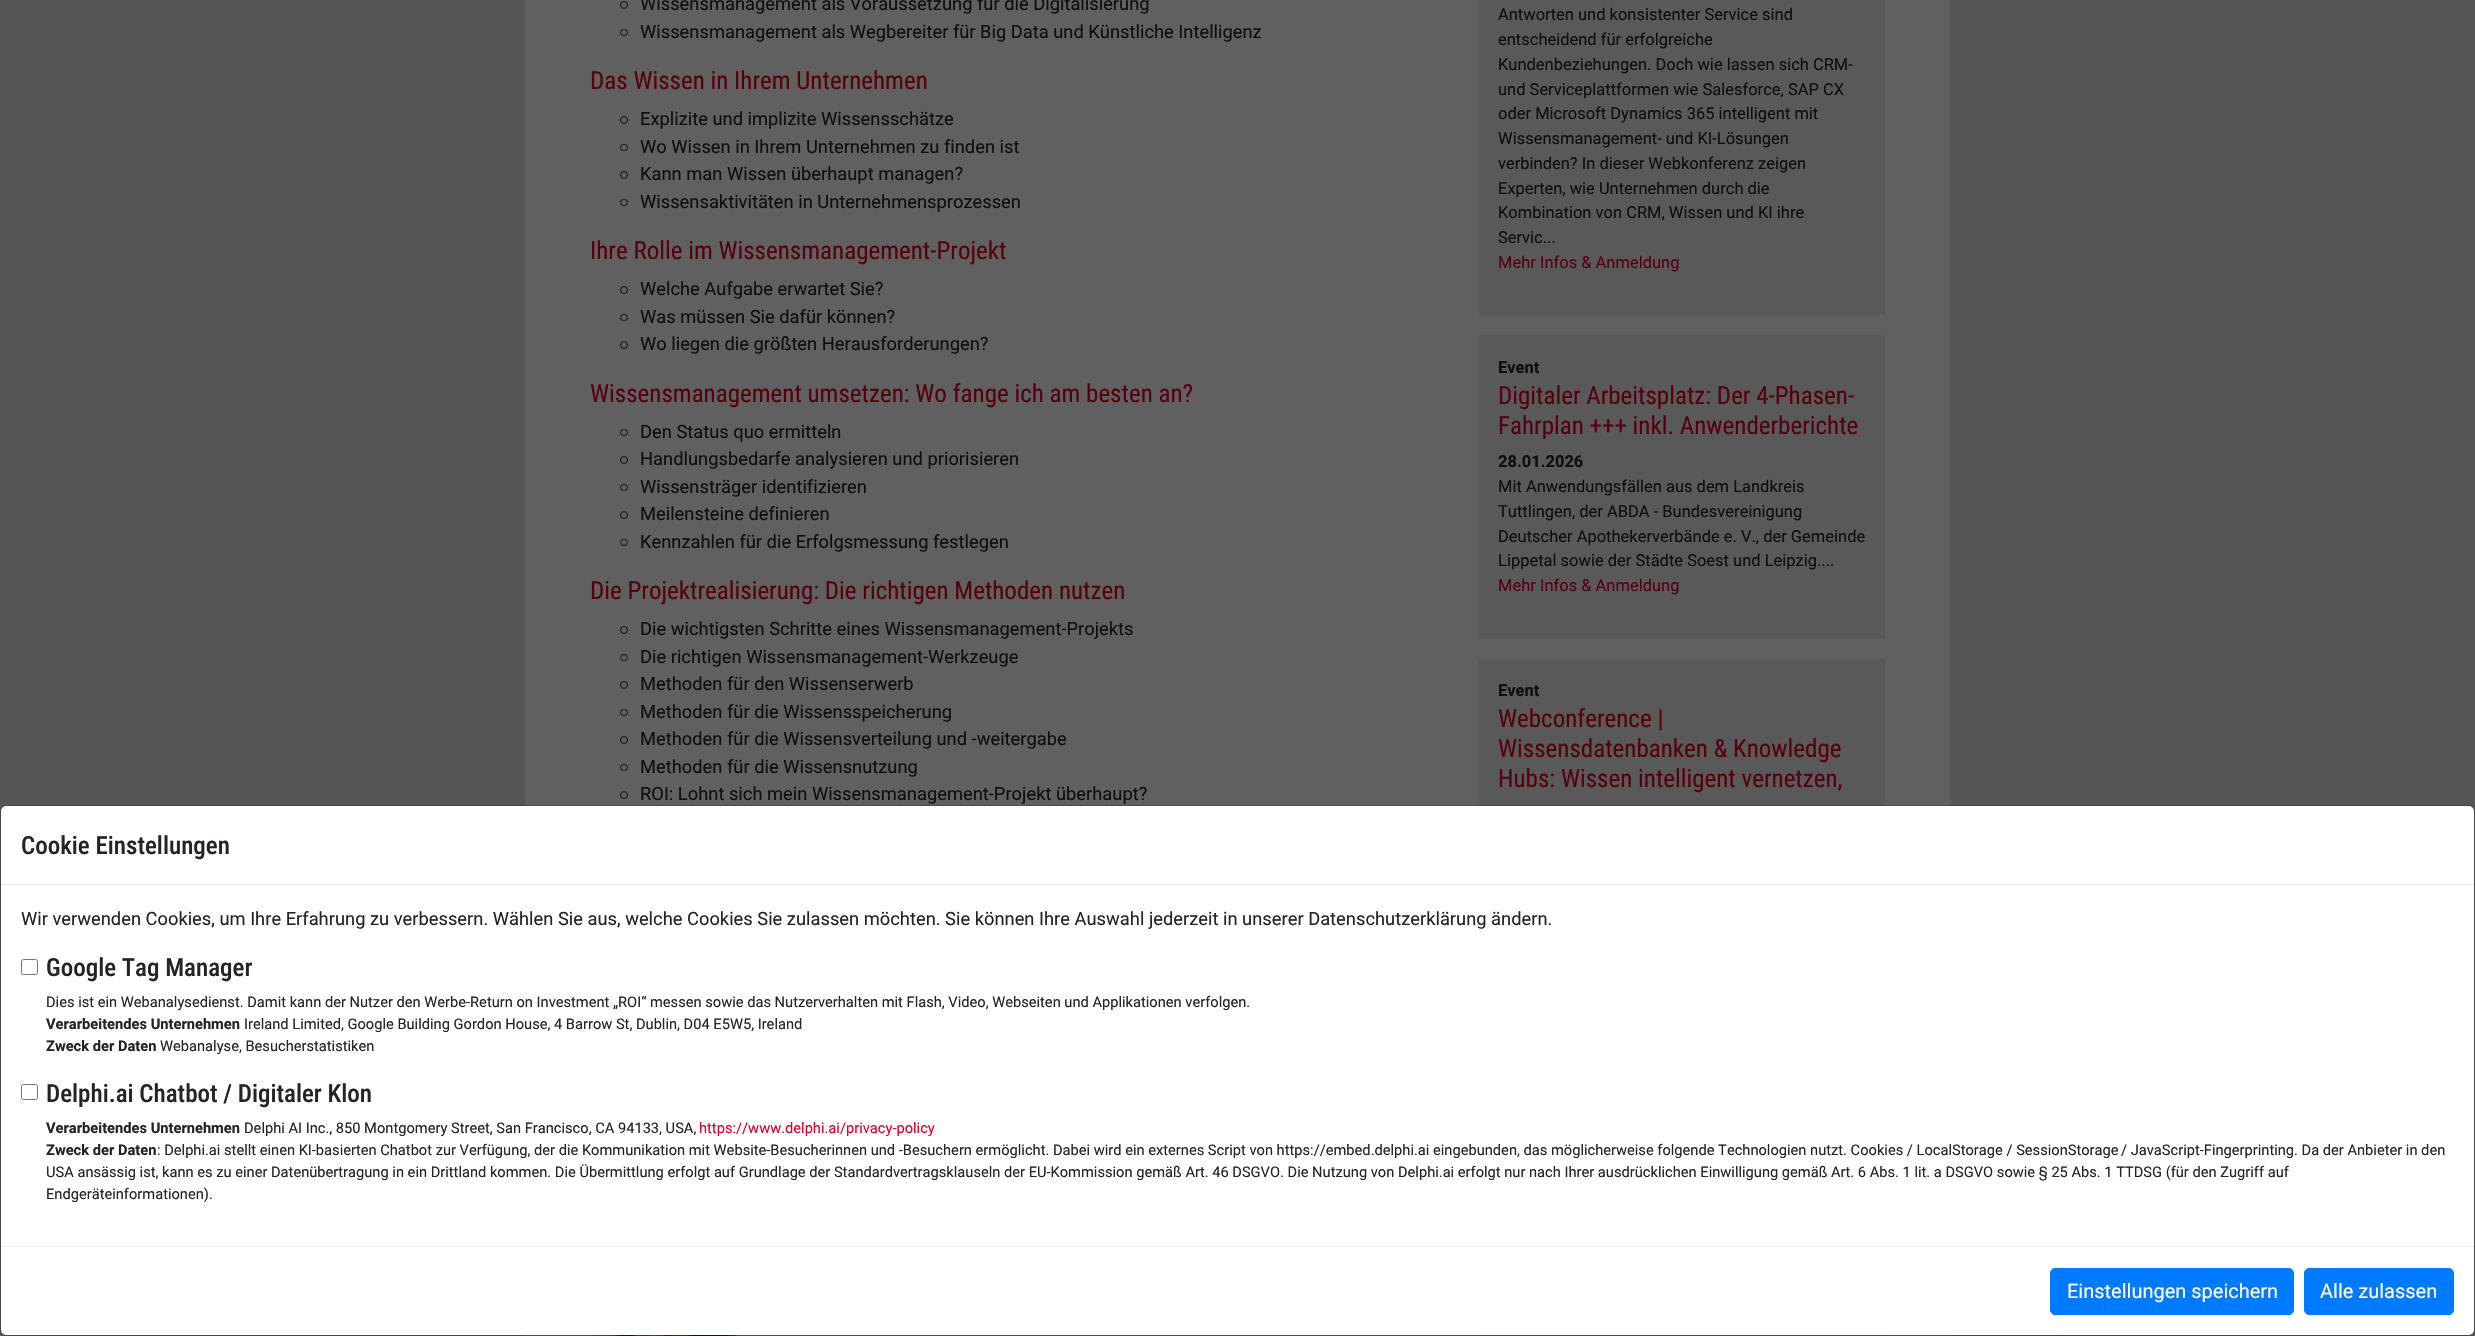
void draw(SkCanvas* canvas) {
    SkPaint paint;
    paint.setAntiAlias(true);
    canvas->clear(0xFF565656);
    paint.setColor(0xFF606060);
    canvas->drawRect(SkRect::MakeXYWH(525, 0, 1425, 1336), paint);
    paint.setStyle(SkPaint::kStroke_Style);
    paint.setStrokeWidth(1);
    paint.setColor(0xFF0D0E10);
    canvas->drawCircle(624, 5, 3.5f, paint);
    SkFont font1(fontMgr->matchFamilyStyle("Roboto", SkFontStyle::Normal()), 18.33f);
    font1.setSubpixel(true);
    paint.setStyle(SkPaint::kFill_Style);
    canvas->drawString("Wissensmanagement als Voraussetzung für die Digitalisierung", 640, 10, font1, paint);
    paint.setStyle(SkPaint::kStroke_Style);
    canvas->drawRoundRect(SkRect::MakeXYWH(620.5f, 29.5f, 7, 6), 3, 3, paint);
    paint.setStyle(SkPaint::kFill_Style);
    canvas->drawString("Wissensmanagement als Wegbereiter für Big Data und Künstliche Intelligenz", 640, 38, font1, paint);
    SkFont font2(fontMgr->matchFamilyStyle("Roboto Condensed", SkFontStyle::Normal()), 25);
    font2.setSubpixel(true);
    paint.setColor(0xFF560011);
    canvas->drawString("Das Wissen in Ihrem Unternehmen", 590, 89, font2, paint);
    paint.setStyle(SkPaint::kStroke_Style);
    paint.setColor(0xFF0D0E10);
    canvas->drawCircle(624, 120, 3.5f, paint);
    paint.setStyle(SkPaint::kFill_Style);
    canvas->drawString("Explizite und implizite Wissensschätze", 640, 125, font1, paint);
    paint.setStyle(SkPaint::kStroke_Style);
    canvas->drawRoundRect(SkRect::MakeXYWH(620.5f, 144.5f, 7, 6), 3, 3, paint);
    paint.setStyle(SkPaint::kFill_Style);
    canvas->drawString("Wo Wissen in Ihrem Unternehmen zu finden ist", 640, 153, font1, paint);
    paint.setStyle(SkPaint::kStroke_Style);
    canvas->drawCircle(624, 175, 3.5f, paint);
    paint.setStyle(SkPaint::kFill_Style);
    canvas->drawString("Kann man Wissen überhaupt managen?", 640, 180, font1, paint);
    paint.setStyle(SkPaint::kStroke_Style);
    canvas->drawRoundRect(SkRect::MakeXYWH(620.5f, 199.5f, 7, 6), 3, 3, paint);
    paint.setStyle(SkPaint::kFill_Style);
    canvas->drawString("Wissensaktivitäten in Unternehmensprozessen", 640, 208, font1, paint);
    paint.setColor(0xFF560011);
    canvas->drawString("Ihre Rolle im Wissensmanagement-Projekt", 590, 259, font2, paint);
    paint.setStyle(SkPaint::kStroke_Style);
    paint.setColor(0xFF0D0E10);
    canvas->drawCircle(624, 290, 3.5f, paint);
    paint.setStyle(SkPaint::kFill_Style);
    canvas->drawString("Welche Aufgabe erwartet Sie?", 640, 295, font1, paint);
    paint.setStyle(SkPaint::kStroke_Style);
    canvas->drawRoundRect(SkRect::MakeXYWH(620.5f, 314.5f, 7, 6), 3, 3, paint);
    paint.setStyle(SkPaint::kFill_Style);
    canvas->drawString("Was müssen Sie dafür können?", 640, 323, font1, paint);
    paint.setStyle(SkPaint::kStroke_Style);
    canvas->drawCircle(624, 345, 3.5f, paint);
    paint.setStyle(SkPaint::kFill_Style);
    canvas->drawString("Wo liegen die größten Herausforderungen?", 640, 350, font1, paint);
    paint.setColor(0xFF560011);
    canvas->drawString("Wissensmanagement umsetzen: Wo fange ich am besten an?", 590, 402, font2, paint);
    paint.setStyle(SkPaint::kStroke_Style);
    paint.setColor(0xFF0D0E10);
    canvas->drawRoundRect(SkRect::MakeXYWH(620.5f, 429.5f, 7, 6), 3, 3, paint);
    paint.setStyle(SkPaint::kFill_Style);
    canvas->drawString("Den Status quo ermitteln", 640, 438, font1, paint);
    paint.setStyle(SkPaint::kStroke_Style);
    canvas->drawCircle(624, 460, 3.5f, paint);
    paint.setStyle(SkPaint::kFill_Style);
    canvas->drawString("Handlungsbedarfe analysieren und priorisieren", 640, 465, font1, paint);
    paint.setStyle(SkPaint::kStroke_Style);
    canvas->drawRoundRect(SkRect::MakeXYWH(620.5f, 484.5f, 7, 6), 3, 3, paint);
    paint.setStyle(SkPaint::kFill_Style);
    canvas->drawString("Wissensträger identifizieren", 640, 493, font1, paint);
    paint.setStyle(SkPaint::kStroke_Style);
    canvas->drawCircle(624, 515, 3.5f, paint);
    paint.setStyle(SkPaint::kFill_Style);
    canvas->drawString("Meilensteine definieren", 640, 520, font1, paint);
    paint.setStyle(SkPaint::kStroke_Style);
    canvas->drawRoundRect(SkRect::MakeXYWH(620.5f, 539.5f, 7, 6), 3, 3, paint);
    paint.setStyle(SkPaint::kFill_Style);
    canvas->drawString("Kennzahlen für die Erfolgsmessung festlegen", 640, 548, font1, paint);
    paint.setColor(0xFF560011);
    canvas->drawString("Die Projektrealisierung: Die richtigen Methoden nutzen", 590, 599, font2, paint);
    paint.setStyle(SkPaint::kStroke_Style);
    paint.setColor(0xFF0D0E10);
    canvas->drawCircle(624, 630, 3.5f, paint);
    paint.setStyle(SkPaint::kFill_Style);
    canvas->drawString("Die wichtigsten Schritte eines Wissensmanagement-Projekts", 640, 635, font1, paint);
    paint.setStyle(SkPaint::kStroke_Style);
    canvas->drawRoundRect(SkRect::MakeXYWH(620.5f, 654.5f, 7, 6), 3, 3, paint);
    paint.setStyle(SkPaint::kFill_Style);
    canvas->drawString("Die richtigen Wissensmanagement-Werkzeuge", 640, 663, font1, paint);
    paint.setStyle(SkPaint::kStroke_Style);
    canvas->drawCircle(624, 685, 3.5f, paint);
    paint.setStyle(SkPaint::kFill_Style);
    canvas->drawString("Methoden für den Wissenserwerb", 640, 690, font1, paint);
    paint.setStyle(SkPaint::kStroke_Style);
    canvas->drawRoundRect(SkRect::MakeXYWH(620.5f, 709.5f, 7, 6), 3, 3, paint);
    paint.setStyle(SkPaint::kFill_Style);
    canvas->drawString("Methoden für die Wissensspeicherung", 640, 718, font1, paint);
    paint.setStyle(SkPaint::kStroke_Style);
    canvas->drawCircle(624, 740, 3.5f, paint);
    paint.setStyle(SkPaint::kFill_Style);
    canvas->drawString("Methoden für die Wissensverteilung und -weitergabe", 640, 745, font1, paint);
    paint.setStyle(SkPaint::kStroke_Style);
    canvas->drawRoundRect(SkRect::MakeXYWH(620.5f, 764.5f, 7, 6), 3, 3, paint);
    paint.setStyle(SkPaint::kFill_Style);
    canvas->drawString("Methoden für die Wissensnutzung", 640, 773, font1, paint);
    paint.setStyle(SkPaint::kStroke_Style);
    canvas->drawCircle(624, 795, 3.5f, paint);
    paint.setStyle(SkPaint::kFill_Style);
    canvas->drawString("ROI: Lohnt sich mein Wissensmanagement-Projekt überhaupt?", 640, 800, font1, paint);
    canvas->drawImageRect(SkImages::DeferredFromEncodedData(SkData::MakeFromFileName("img1.png")), SkRect::MakeXYWH(590, 1335, 150, 1), SkSamplingOptions());
    paint.setColor(0xFF595959);
    canvas->drawRect(SkRect::MakeXYWH(1479, 0, 406, 315), paint);
    SkFont font3(fontMgr->matchFamilyStyle("Roboto", SkFontStyle::Normal()), 16.5f);
    font3.setSubpixel(true);
    paint.setColor(0xFF0D0E10);
    canvas->drawString("Antworten und konsistenter Service sind", 1498, 20, font3, paint);
    canvas->drawString("entscheidend für erfolgreiche", 1498, 45, font3, paint);
    canvas->drawString("Kundenbeziehungen. Doch wie lassen sich CRM-", 1498, 70, font3, paint);
    canvas->drawString("und Serviceplattformen wie Salesforce, SAP CX", 1498, 95, font3, paint);
    canvas->drawString("oder Microsoft Dynamics 365 intelligent mit", 1498, 119, font3, paint);
    canvas->drawString("Wissensmanagement- und KI-Lösungen", 1498, 144, font3, paint);
    canvas->drawString("verbinden? In dieser Webkonferenz zeigen", 1498, 169, font3, paint);
    canvas->drawString("Experten, wie Unternehmen durch die", 1498, 194, font3, paint);
    canvas->drawString("Kombination von CRM, Wissen und KI ihre", 1498, 218, font3, paint);
    canvas->drawString("Servic...", 1498, 243, font3, paint);
    paint.setColor(0xFF560011);
    canvas->drawString("Mehr Infos & Anmeldung", 1498, 268, font3, paint);
    paint.setColor(0xFF595959);
    canvas->drawRect(SkRect::MakeXYWH(1479, 335, 406, 304), paint);
    SkFont font4(fontMgr->matchFamilyStyle("Roboto", SkFontStyle::Bold()), 16.5f);
    font4.setSubpixel(true);
    paint.setColor(0xFF0D0E10);
    canvas->drawString("Event", 1498, 373, font4, paint);
    paint.setColor(0xFF560011);
    canvas->drawString("Digitaler Arbeitsplatz: Der 4-Phasen-", 1498, 404, font2, paint);
    canvas->drawString("Fahrplan +++ inkl. Anwenderberichte", 1498, 434, font2, paint);
    paint.setColor(0xFF0D0E10);
    canvas->drawString("28.01.2026", 1498, 467, font4, paint);
    canvas->drawString("Mit Anwendungsfällen aus dem Landkreis", 1498, 492, font3, paint);
    canvas->drawString("Tuttlingen, der ABDA - Bundesvereinigung", 1498, 517, font3, paint);
    canvas->drawString("Deutscher Apothekerverbände e. V., der Gemeinde", 1498, 542, font3, paint);
    canvas->drawString("Lippetal sowie der Städte Soest und Leipzig....", 1498, 566, font3, paint);
    paint.setColor(0xFF560011);
    canvas->drawString("Mehr Infos & Anmeldung", 1498, 591, font3, paint);
    paint.setColor(0xFF595959);
    canvas->drawRect(SkRect::MakeXYWH(1479, 659, 406, 147), paint);
    paint.setColor(0xFF0D0E10);
    canvas->drawString("Event", 1498, 696, font4, paint);
    paint.setColor(0xFF560011);
    canvas->drawString("Webconference |", 1498, 727, font2, paint);
    canvas->drawString("Wissensdatenbanken & Knowledge", 1498, 757, font2, paint);
    canvas->drawString("Hubs: Wissen intelligent vernetzen,", 1498, 787, font2, paint);
    paint.setColor(0xFF595959);
    canvas->drawRect(SkRect::MakeXYWH(1479, 1335, 406, 1), paint);
    paint.setColor(0xFFFFFFFF);
    canvas->drawRoundRect(SkRect::MakeXYWH(1, 806, 2473, 529), 5, 5, paint);
    paint.setStyle(SkPaint::kStroke_Style);
    paint.setColor(0x33000000);
    canvas->drawRoundRect(SkRect::MakeXYWH(0.5f, 805.5f, 2474, 530), 5.5f, 5.5f, paint);
    paint.setStyle(SkPaint::kFill_Style);
    paint.setColor(0xFFE9ECEF);
    canvas->drawRect(SkRect::MakeXYWH(1, 884, 2473, 1), paint);
    SkFont font5(fontMgr->matchFamilyStyle("Roboto Condensed", SkFontStyle(500, SkFontStyle::kNormal_Width, SkFontStyle::kUpright_Slant)), 25);
    font5.setSubpixel(true);
    paint.setColor(0xFF212529);
    canvas->drawString("Cookie Einstellungen", 21, 854, font5, paint);
    canvas->drawString("Wir verwenden Cookies, um Ihre Erfahrung zu verbessern. Wählen Sie aus, welche Cookies Sie zulassen möchten. Sie können Ihre Auswahl jederzeit in unserer Datenschutzerklärung ändern.", 21, 925, font1, paint);
    paint.setStyle(SkPaint::kStroke_Style);
    paint.setColor(0xFF767676);
    canvas->drawRoundRect(SkRect::MakeXYWH(21.5f, 959.5f, 16, 15), 2, 2, paint);
    paint.setStyle(SkPaint::kFill_Style);
    paint.setColor(0xFF212529);
    canvas->drawString("Google Tag Manager", 46, 976, font5, paint);
    SkFont font6(fontMgr->matchFamilyStyle("Roboto", SkFontStyle::Normal()), 14.67f);
    font6.setSubpixel(true);
    canvas->drawString("Dies ist ein Webanalysedienst. Damit kann der Nutzer den Werbe-Return on Investment „ROI“ messen sowie das Nutzerverhalten mit Flash, Video, Webseiten und Applikationen verfolgen.", 46, 1007, font6, paint);
    SkFont font7(fontMgr->matchFamilyStyle("Roboto", SkFontStyle::Bold()), 14.67f);
    font7.setSubpixel(true);
    canvas->drawString("Verarbeitendes Unternehmen", 46, 1029, font7, paint);
    canvas->drawString("Ireland Limited, Google Building Gordon House, 4 Barrow St, Dublin, D04 E5W5, Ireland", 244, 1029, font6, paint);
    canvas->drawString("Zweck der Daten", 46, 1051, font7, paint);
    canvas->drawString("Webanalyse, Besucherstatistiken", 160, 1051, font6, paint);
    paint.setStyle(SkPaint::kStroke_Style);
    paint.setColor(0xFF767676);
    canvas->drawRoundRect(SkRect::MakeXYWH(21.5f, 1084.5f, 16, 15), 2, 2, paint);
    paint.setStyle(SkPaint::kFill_Style);
    paint.setColor(0xFF212529);
    canvas->drawString("Delphi.ai Chatbot / Digitaler Klon", 46, 1102, font5, paint);
    canvas->drawString("Verarbeitendes Unternehmen", 46, 1133, font7, paint);
    canvas->drawString("Delphi AI Inc., 850 Montgomery Street, San Francisco, CA 94133, USA,", 244, 1133, font6, paint);
    paint.setColor(0xFFE4002B);
    canvas->drawString("https://www.delphi.ai/privacy-policy", 699, 1133, font6, paint);
    paint.setColor(0xFF212529);
    canvas->drawString("Zweck der Daten", 46, 1155, font7, paint);
    canvas->drawString(": Delphi.ai stellt einen KI-basierten Chatbot zur Verfügung, der die Kommunikation mit Website-Besucherinnen und -Besuchern ermöglicht. Dabei wird ein externes Script von https://embed.delphi.ai eingebunden, das möglicherweise folgende Technologien nutzt. Cookies / LocalStorage / SessionStorage", 157, 1155, font6, paint);
    canvas->drawString("/ JavaScript-Fingerprinting. Da der Anbieter in den", 2121, 1155, font6, paint);
    canvas->drawString("USA ansässig ist, kann es zu einer Datenübertragung in ein Drittland kommen. Die Übermittlung erfolgt auf Grundlage der Standardvertragsklauseln der EU-Kommission gemäß Art. 46 DSGVO. Die Nutzung von Delphi.ai erfolgt nur nach Ihrer ausdrücklichen Einwilligung gemäß Art. 6 Abs. 1 lit. a DSGVO sowie § 25 Abs. 1 TTDSG (für den Zugriff auf", 46, 1177, font6, paint);
    canvas->drawString("Endgeräteinformationen).", 46, 1199, font6, paint);
    paint.setColor(0xFFE9ECEF);
    canvas->drawRect(SkRect::MakeXYWH(1, 1246, 2473, 1), paint);
    paint.setColor(0xFF007BFF);
    canvas->drawRoundRect(SkRect::MakeXYWH(2050.5f, 1268.5f, 243, 46), 4.5f, 4.5f, paint);
    paint.setStyle(SkPaint::kStroke_Style);
    canvas->drawRoundRect(SkRect::MakeXYWH(2050.5f, 1268.5f, 243, 46), 4.5f, 4.5f, paint);
    SkFont font8(fontMgr->matchFamilyStyle("Roboto", SkFontStyle::Normal()), 20);
    font8.setSubpixel(true);
    paint.setStyle(SkPaint::kFill_Style);
    paint.setColor(0xFFFFFFFF);
    canvas->drawString("Einstellungen speichern", 2067, 1298, font8, paint);
    paint.setColor(0xFF007BFF);
    canvas->drawRoundRect(SkRect::MakeXYWH(2304.5f, 1268.5f, 149, 46), 4.5f, 4.5f, paint);
    paint.setStyle(SkPaint::kStroke_Style);
    canvas->drawRoundRect(SkRect::MakeXYWH(2304.5f, 1268.5f, 149, 46), 4.5f, 4.5f, paint);
    paint.setStyle(SkPaint::kFill_Style);
    paint.setColor(0xFFFFFFFF);
    canvas->drawString("Alle zulassen", 2320, 1298, font8, paint);
}
